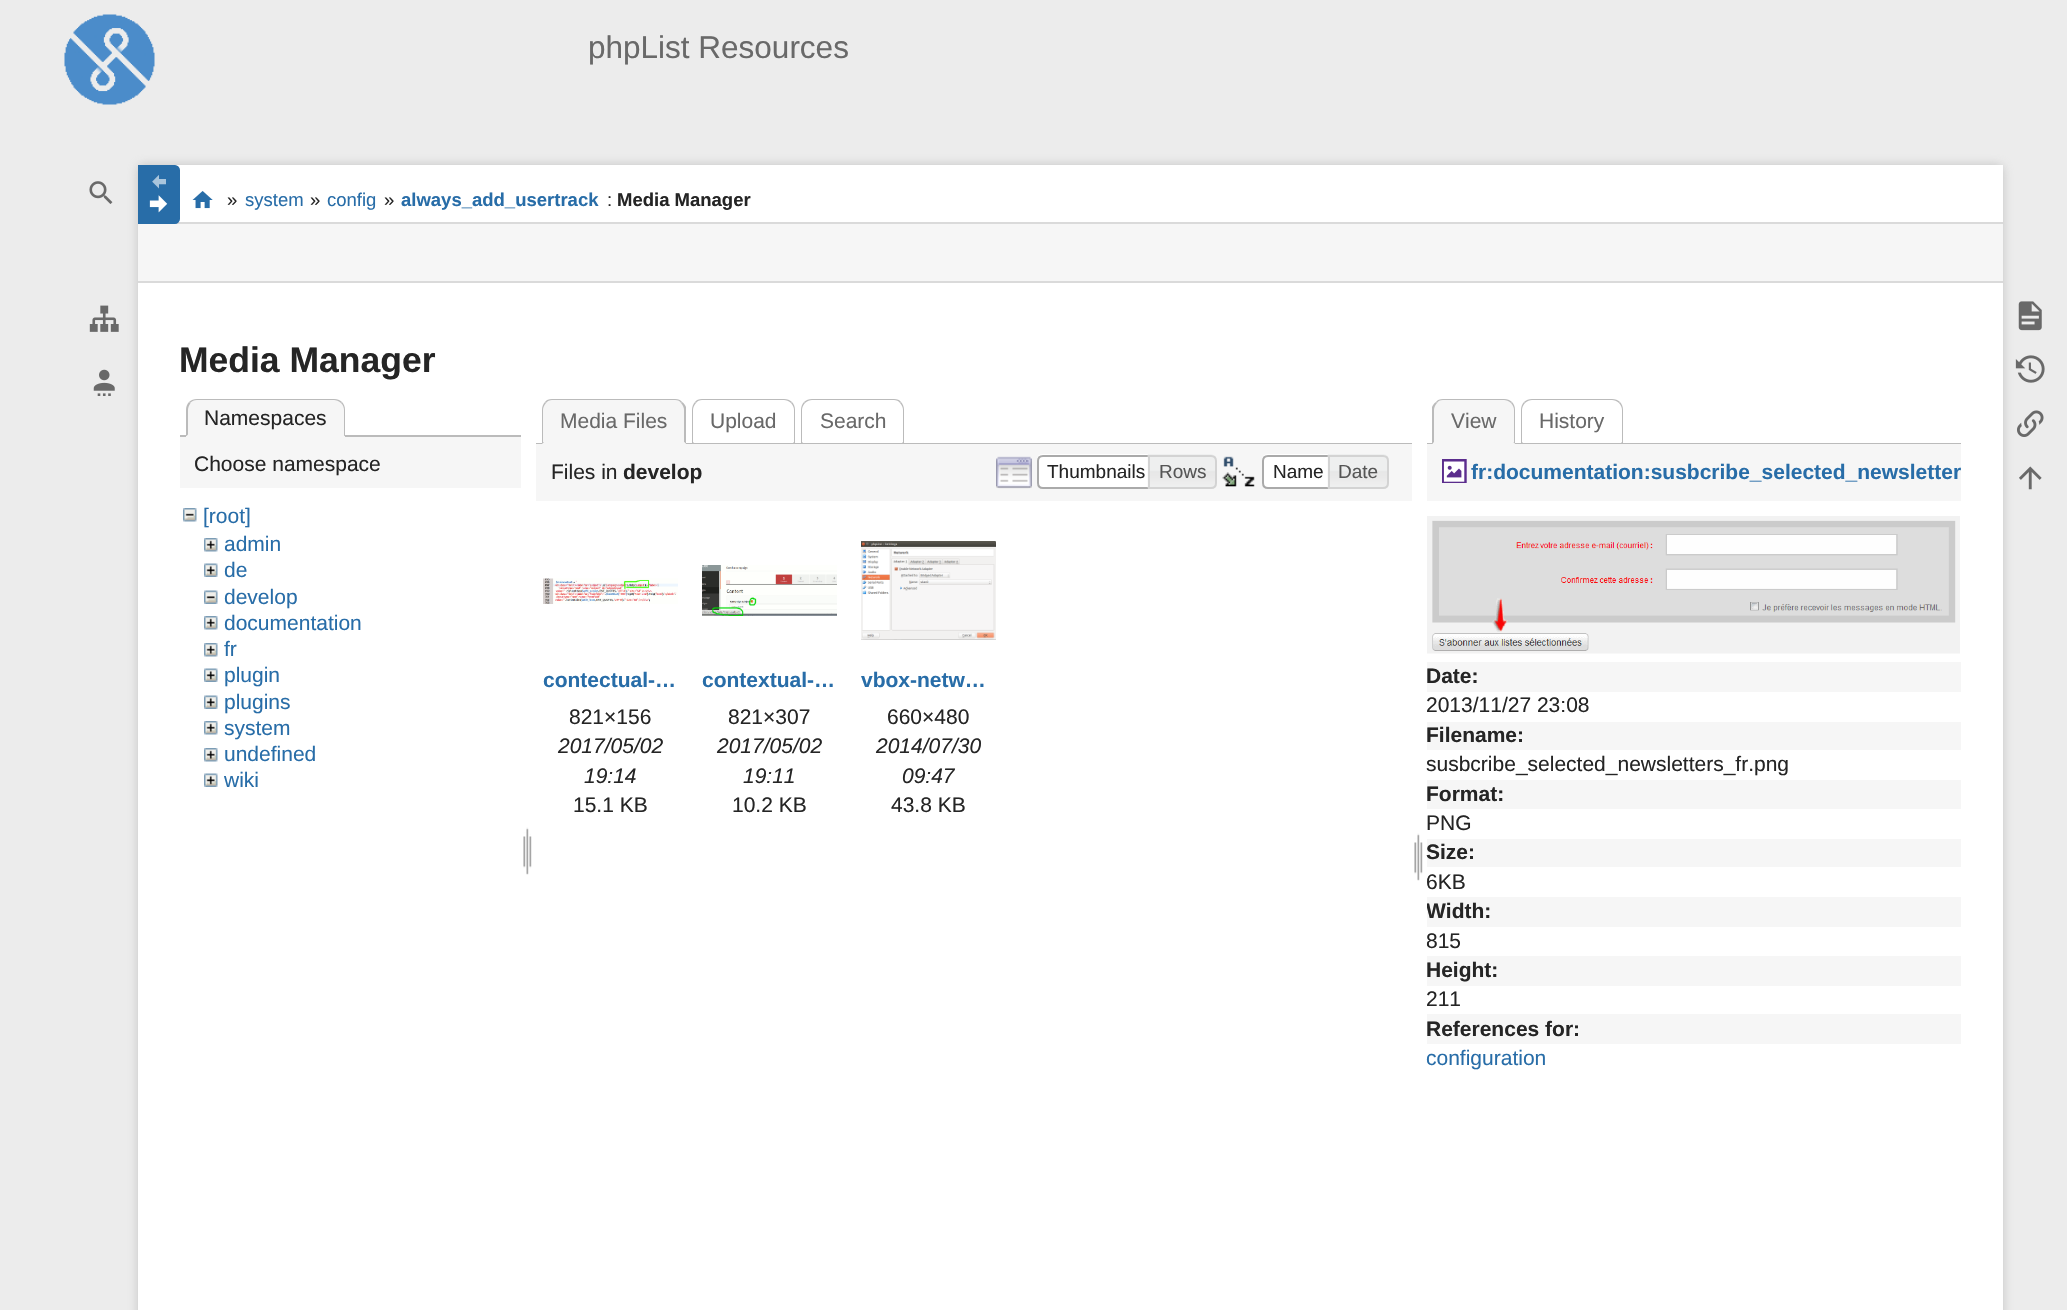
void draw(SkCanvas* canvas) {
    SkPaint paint;
    paint.setAntiAlias(true);
    canvas->clear(0xFFECECEC);
    canvas->drawImageRect(SkImages::DeferredFromEncodedData(SkData::MakeFromFileName("img1.png")), SkRect::MakeXYWH(64, 14, 91, 91), SkSamplingOptions());
    SkFont font1(fontMgr->matchFamilyStyle("Liberation Sans", SkFontStyle::Normal()), 31.5f);
    font1.setSubpixel(true);
    paint.setColor(0xFF696969);
    canvas->drawString("phpList Resources", 588, 58, font1, paint);
    canvas->drawImageRect(SkImages::DeferredFromEncodedData(SkData::MakeFromFileName("img2.png")), SkRect::MakeXYWH(89, 181, 24, 23), SkSamplingOptions());
    canvas->drawImageRect(SkImages::DeferredFromEncodedData(SkData::MakeFromFileName("img3.png")), SkRect::MakeXYWH(89, 305, 30, 27), SkSamplingOptions());
    canvas->drawImageRect(SkImages::DeferredFromEncodedData(SkData::MakeFromFileName("img4.png")), SkRect::MakeXYWH(93, 369, 22, 27), SkSamplingOptions());
    paint.setColor(0x80999999);
    paint.setMaskFilter(SkMaskFilter::MakeBlur(kNormal_SkBlurStyle, 5.5f));
    canvas->drawRoundRect(SkRect::MakeXYWH(138, 165, 1865, 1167), 5, 5, paint);
    paint.setMaskFilter(nullptr);
    paint.setColor(0xFFFFFFFF);
    canvas->drawRect(SkRect::MakeXYWH(138, 283, 1865, 1027), paint);
    canvas->drawRect(SkRect::MakeXYWH(175, 165, 1828, 57), paint);
    paint.setColor(0xFFDADADA);
    canvas->drawRect(SkRect::MakeXYWH(175, 222, 1828, 2), paint);
    paint.setColor(0xFF286DA8);
    canvas->drawPath(SkPathBuilder().moveTo(139, 166).lineTo(175, 166).cubicTo(177, 166, 179, 168, 179, 170).lineTo(179, 219).cubicTo(179, 221, 177, 223, 175, 223).lineTo(139, 223).close().detach(), paint);
    paint.setStyle(SkPaint::kStroke_Style);
    paint.setStrokeWidth(2);
    canvas->drawPath(SkPathBuilder().moveTo(139, 166).lineTo(175, 166).cubicTo(177, 166, 179, 168, 179, 170).lineTo(179, 219).cubicTo(179, 221, 177, 223, 175, 223).lineTo(139, 223).close().detach(), paint);
    canvas->drawImageRect(SkImages::DeferredFromEncodedData(SkData::MakeFromFileName("img5.png")), SkRect::MakeXYWH(152, 175, 14, 14), SkSamplingOptions());
    canvas->drawImageRect(SkImages::DeferredFromEncodedData(SkData::MakeFromFileName("img6.png")), SkRect::MakeXYWH(149, 195, 19, 18), SkSamplingOptions());
    canvas->drawImageRect(SkImages::DeferredFromEncodedData(SkData::MakeFromFileName("img7.png")), SkRect::MakeXYWH(192, 191, 21, 18), SkSamplingOptions());
    SkFont font2(fontMgr->matchFamilyStyle("Liberation Sans", SkFontStyle::Normal()), 18.5f);
    font2.setSubpixel(true);
    paint.setStyle(SkPaint::kFill_Style);
    paint.setColor(0xFF252525);
    canvas->drawString("»", 227, 206, font2, paint);
    paint.setColor(0xFF286DA8);
    canvas->drawString("system", 245, 206, font2, paint);
    paint.setColor(0xFF252525);
    canvas->drawString("»", 310, 206, font2, paint);
    paint.setColor(0xFF286DA8);
    canvas->drawString("config", 327, 206, font2, paint);
    paint.setColor(0xFF252525);
    canvas->drawString("»", 384, 206, font2, paint);
    SkFont font3(fontMgr->matchFamilyStyle("Liberation Sans", SkFontStyle::Bold()), 18.5f);
    font3.setSubpixel(true);
    paint.setColor(0xFF286DA8);
    canvas->drawString("always_add_usertrack", 401, 206, font3, paint);
    paint.setColor(0xFF252525);
    canvas->drawString(":", 607, 206, font2, paint);
    canvas->drawString("Media Manager", 617, 206, font3, paint);
    canvas->drawImageRect(SkImages::DeferredFromEncodedData(SkData::MakeFromFileName("img8.png")), SkRect::MakeXYWH(2018, 301, 24, 30), SkSamplingOptions());
    canvas->drawImageRect(SkImages::DeferredFromEncodedData(SkData::MakeFromFileName("img9.png")), SkRect::MakeXYWH(2015, 355, 30, 28), SkSamplingOptions());
    canvas->drawImageRect(SkImages::DeferredFromEncodedData(SkData::MakeFromFileName("img10.png")), SkRect::MakeXYWH(2017, 410, 27, 27), SkSamplingOptions());
    canvas->drawImageRect(SkImages::DeferredFromEncodedData(SkData::MakeFromFileName("img11.png")), SkRect::MakeXYWH(2019, 466, 23, 24), SkSamplingOptions());
    paint.setColor(0xFFF6F6F6);
    canvas->drawRect(SkRect::MakeXYWH(138, 224, 1865, 57), paint);
    paint.setColor(0xFFDADADA);
    canvas->drawRect(SkRect::MakeXYWH(138, 281, 1865, 2), paint);
    SkFont font4(fontMgr->matchFamilyStyle("Liberation Sans", SkFontStyle::Bold()), 35.5f);
    font4.setSubpixel(true);
    paint.setColor(0xFF252525);
    canvas->drawString("Media Manager", 179, 372, font4, paint);
    paint.setColor(0xFFBBBBBB);
    canvas->drawRect(SkRect::MakeXYWH(180, 435, 341, 2), paint);
    paint.setColor(0xFFF6F6F6);
    canvas->drawPath(SkPathBuilder().moveTo(197, 399).lineTo(334, 399).cubicTo(340, 399, 345, 404, 345, 410).lineTo(345, 437).lineTo(186, 437).lineTo(186, 410).cubicTo(186, 404, 191, 399, 197, 399).close().detach(), paint);
    paint.setColor(0xFFBBBBBB);
    canvas->drawPath(SkPathBuilder().moveTo(197, 399).cubicTo(194, 399, 191, 400, 189, 402).lineTo(190, 403).cubicTo(192, 401, 194, 400, 197, 400).lineTo(334, 400).cubicTo(336, 400, 339, 401, 341, 403).lineTo(342, 402).cubicTo(340, 400, 337, 399, 334, 399).close().detach(), paint);
    canvas->drawPath(SkPathBuilder().moveTo(345, 436).lineTo(345, 410).cubicTo(345, 407, 344, 404, 342, 402).lineTo(341, 403).cubicTo(343, 405, 344, 407.5f, 344, 410).lineTo(344, 435).lineTo(343.5f, 435).lineTo(344.5f, 436).close().detach(), paint);
    paint.setColor(0xFFF6F6F6);
    canvas->drawPath(SkPathBuilder().moveTo(344, 436).lineTo(186, 436).lineTo(188, 434).lineTo(188, 435).lineTo(344, 435).close().detach(), paint);
    paint.setColor(0xFFBBBBBB);
    canvas->drawPath(SkPathBuilder().moveTo(186, 410).lineTo(186, 436).lineTo(186.5f, 436).lineTo(188, 434.5f).lineTo(188, 410).cubicTo(188, 407.5f, 189, 405, 190.5f, 403.5f).lineTo(189, 402).cubicTo(187, 404, 186, 407, 186, 410).close().detach(), paint);
    SkFont font5(fontMgr->matchFamilyStyle("Liberation Sans", SkFontStyle::Normal()), 21);
    font5.setSubpixel(true);
    paint.setColor(0xFF252525);
    canvas->drawString("Namespaces", 204, 425, font5, paint);
    paint.setColor(0xFFF6F6F6);
    canvas->drawRect(SkRect::MakeXYWH(180, 437, 341, 51), paint);
    paint.setColor(0xFF252525);
    canvas->drawString("Choose namespace", 194, 471, font5, paint);
    canvas->drawImageRect(SkImages::DeferredFromEncodedData(SkData::MakeFromFileName("img12.png")), SkRect::MakeXYWH(183, 508, 14, 14), SkSamplingOptions());
    paint.setColor(0xFF286DA8);
    canvas->drawString("[root]", 203, 523, font5, paint);
    canvas->drawImageRect(SkImages::DeferredFromEncodedData(SkData::MakeFromFileName("img13.png")), SkRect::MakeXYWH(204, 538, 14, 14), SkSamplingOptions());
    canvas->drawString("admin", 224, 551, font5, paint);
    canvas->drawImageRect(SkImages::DeferredFromEncodedData(SkData::MakeFromFileName("img14.png")), SkRect::MakeXYWH(204, 563, 14, 14), SkSamplingOptions());
    canvas->drawString("de", 224, 577, font5, paint);
    canvas->drawImageRect(SkImages::DeferredFromEncodedData(SkData::MakeFromFileName("img15.png")), SkRect::MakeXYWH(204, 590, 14, 14), SkSamplingOptions());
    canvas->drawString("develop", 224, 604, font5, paint);
    canvas->drawImageRect(SkImages::DeferredFromEncodedData(SkData::MakeFromFileName("img13.png")), SkRect::MakeXYWH(204, 616, 14, 14), SkSamplingOptions());
    canvas->drawString("documentation", 224, 630, font5, paint);
    canvas->drawImageRect(SkImages::DeferredFromEncodedData(SkData::MakeFromFileName("img13.png")), SkRect::MakeXYWH(204, 643, 14, 14), SkSamplingOptions());
    canvas->drawString("fr", 224, 656, font5, paint);
    canvas->drawImageRect(SkImages::DeferredFromEncodedData(SkData::MakeFromFileName("img14.png")), SkRect::MakeXYWH(204, 668, 14, 14), SkSamplingOptions());
    canvas->drawString("plugin", 224, 682, font5, paint);
    canvas->drawImageRect(SkImages::DeferredFromEncodedData(SkData::MakeFromFileName("img14.png")), SkRect::MakeXYWH(204, 695, 14, 14), SkSamplingOptions());
    canvas->drawString("plugins", 224, 709, font5, paint);
    canvas->drawImageRect(SkImages::DeferredFromEncodedData(SkData::MakeFromFileName("img13.png")), SkRect::MakeXYWH(204, 721, 14, 14), SkSamplingOptions());
    canvas->drawString("system", 224, 735, font5, paint);
    canvas->drawImageRect(SkImages::DeferredFromEncodedData(SkData::MakeFromFileName("img13.png")), SkRect::MakeXYWH(204, 748, 14, 14), SkSamplingOptions());
    canvas->drawString("undefined", 224, 761, font5, paint);
    canvas->drawImageRect(SkImages::DeferredFromEncodedData(SkData::MakeFromFileName("img14.png")), SkRect::MakeXYWH(204, 773, 14, 14), SkSamplingOptions());
    canvas->drawString("wiki", 224, 787, font5, paint);
    canvas->drawImageRect(SkImages::DeferredFromEncodedData(SkData::MakeFromFileName("img16.png")), SkRect::MakeXYWH(523, 827, 9, 48), SkSamplingOptions());
    paint.setColor(0xFFBBBBBB);
    canvas->drawPath(SkPathBuilder().moveTo(702, 399).cubicTo(699, 399, 696, 400, 695, 402).lineTo(696, 403).cubicTo(697, 401, 700, 400, 702, 400).lineTo(784, 400).cubicTo(786, 400, 789, 401, 791, 403).lineTo(792, 402).cubicTo(790, 400, 787, 399, 784, 399).close().detach(), paint);
    canvas->drawPath(SkPathBuilder().moveTo(795, 444).lineTo(795, 410).cubicTo(795, 407, 794, 404, 792, 402).lineTo(791, 403).cubicTo(793, 405, 794, 408, 794, 410).lineTo(794, 442).lineTo(793, 442).close().detach(), paint);
    canvas->drawPath(SkPathBuilder().moveTo(695, 402).cubicTo(693, 404, 692, 407, 692, 410).lineTo(692, 444).lineTo(694, 442).lineTo(693, 442).lineTo(693, 410).cubicTo(693, 408, 694, 405, 696, 403).close().detach(), paint);
    canvas->drawPath(SkPathBuilder().moveTo(812, 399).cubicTo(809, 399, 806, 400, 804, 402).lineTo(805, 403).cubicTo(807, 401, 810, 400, 812, 400).lineTo(894, 400).cubicTo(896, 400, 899, 401, 900, 403).lineTo(901, 402).cubicTo(900, 400, 897, 399, 894, 399).close().detach(), paint);
    canvas->drawPath(SkPathBuilder().moveTo(901, 402).cubicTo(903, 404, 904, 407, 904, 410).lineTo(904, 444).lineTo(902, 442).lineTo(903, 442).lineTo(903, 410).cubicTo(903, 408, 902, 405, 900, 403).close().detach(), paint);
    canvas->drawPath(SkPathBuilder().moveTo(801, 444).lineTo(803, 442).lineTo(802, 442).lineTo(802, 410).cubicTo(802, 408, 803, 405, 805, 403).lineTo(804, 402).cubicTo(802, 404, 801, 407, 801, 410).close().detach(), paint);
    canvas->drawRect(SkRect::MakeXYWH(536, 443, 876, 1), paint);
    paint.setColor(0xFFF6F6F6);
    canvas->drawPath(SkPathBuilder().moveTo(553, 399).lineTo(675, 399).cubicTo(681, 399, 686, 404, 686, 410).lineTo(686, 444).lineTo(542, 444).lineTo(542, 410).cubicTo(542, 404, 547, 399, 553, 399).close().detach(), paint);
    paint.setColor(0xFFBBBBBB);
    canvas->drawPath(SkPathBuilder().moveTo(552, 399).cubicTo(549, 399, 546, 400, 545, 402).lineTo(546, 403).cubicTo(547, 401, 550, 400, 552, 400).lineTo(675, 400).cubicTo(678, 400, 680, 401, 681, 403).lineTo(682, 402).cubicTo(681, 400, 678, 399, 675, 399).close().detach(), paint);
    canvas->drawPath(SkPathBuilder().moveTo(686, 407).lineTo(686, 444).lineTo(684, 442).lineTo(684, 410).cubicTo(684, 408, 683, 405, 681, 403).lineTo(682, 402).cubicTo(684, 403, 685, 405, 686, 407).close().detach(), paint);
    paint.setColor(0xFFF6F6F6);
    canvas->drawPath(SkPathBuilder().moveTo(686, 444).lineTo(684, 442).lineTo(544, 442).lineTo(542, 444).close().detach(), paint);
    paint.setColor(0xFFBBBBBB);
    canvas->drawPath(SkPathBuilder().moveTo(545, 402).cubicTo(543, 404, 542, 407, 542, 410).lineTo(542, 444).lineTo(544, 442).lineTo(543, 442).lineTo(543, 410).cubicTo(543, 408, 544, 405, 546, 403).close().detach(), paint);
    paint.setColor(0xFF696969);
    canvas->drawString("Media Files", 560, 428, font5, paint);
    canvas->drawString("Upload", 710, 428, font5, paint);
    canvas->drawString("Search", 820, 428, font5, paint);
    paint.setColor(0xFFF6F6F6);
    canvas->drawRect(SkRect::MakeXYWH(536, 444, 876, 57), paint);
    paint.setColor(0xFF252525);
    canvas->drawString("Files in", 551, 479, font5, paint);
    SkFont font6(fontMgr->matchFamilyStyle("Liberation Sans", SkFontStyle::Bold()), 21);
    font6.setSubpixel(true);
    canvas->drawString("develop", 623, 479, font6, paint);
    canvas->drawImageRect(SkImages::DeferredFromEncodedData(SkData::MakeFromFileName("img17.png")), SkRect::MakeXYWH(996, 456, 36, 33), SkSamplingOptions());
    paint.setColor(0xFFFFFFFF);
    canvas->drawPath(SkPathBuilder().moveTo(1043, 455).lineTo(1155, 455).lineTo(1155, 489).lineTo(1043, 489).cubicTo(1039.5f, 489, 1037, 486.5f, 1037, 483).lineTo(1037, 461).cubicTo(1037, 457.5f, 1039.5f, 455, 1043, 455).close().detach(), paint);
    canvas->drawImageRect(SkImages::DeferredFromEncodedData(SkData::MakeFromFileName("img18.png")), SkRect::MakeXYWH(1037, 454, 111, 5), SkSamplingOptions());
    paint.setStyle(SkPaint::kStroke_Style);
    paint.setColor(0xFFAAAAAA);
    canvas->drawPath(SkPathBuilder().moveTo(1043, 456).lineTo(1154, 456).lineTo(1154, 488).lineTo(1043, 488).cubicTo(1040, 488, 1038, 486, 1038, 483).lineTo(1038, 461).cubicTo(1038, 458, 1040, 456, 1043, 456).close().detach(), paint);
    SkFont font7(fontMgr->matchFamilyStyle("Liberation Sans", SkFontStyle::Normal()), 19);
    font7.setSubpixel(true);
    paint.setStyle(SkPaint::kFill_Style);
    paint.setColor(0xFF252525);
    canvas->drawString("Thumbnails", 1047, 478, font7, paint);
    canvas->drawImageRect(SkImages::DeferredFromEncodedData(SkData::MakeFromFileName("img19.png")), SkRect::MakeXYWH(1147, 454, 69, 35), SkSamplingOptions());
    paint.setStyle(SkPaint::kStroke_Style);
    paint.setColor(0xFFD3D3D3);
    canvas->drawPath(SkPathBuilder().moveTo(1149, 456).lineTo(1211, 456).cubicTo(1214, 456, 1216, 458, 1216, 461).lineTo(1216, 483).cubicTo(1216, 486, 1214, 488, 1211, 488).lineTo(1149, 488).close().detach(), paint);
    paint.setStyle(SkPaint::kFill_Style);
    paint.setColor(0xFF555555);
    canvas->drawString("Rows", 1159, 478, font7, paint);
    canvas->drawImageRect(SkImages::DeferredFromEncodedData(SkData::MakeFromFileName("img20.png")), SkRect::MakeXYWH(1222, 456, 33, 31), SkSamplingOptions());
    paint.setColor(0xFFFFFFFF);
    canvas->drawPath(SkPathBuilder().moveTo(1268, 455).lineTo(1335, 455).lineTo(1335, 489).lineTo(1268, 489).cubicTo(1264.5f, 489, 1262, 486.5f, 1262, 483).lineTo(1262, 461).cubicTo(1262, 457.5f, 1264.5f, 455, 1268, 455).close().detach(), paint);
    canvas->drawImageRect(SkImages::DeferredFromEncodedData(SkData::MakeFromFileName("img21.png")), SkRect::MakeXYWH(1262, 454, 66, 5), SkSamplingOptions());
    paint.setStyle(SkPaint::kStroke_Style);
    paint.setColor(0xFFAAAAAA);
    canvas->drawPath(SkPathBuilder().moveTo(1268, 456).lineTo(1334, 456).lineTo(1334, 488).lineTo(1268, 488).cubicTo(1265, 488, 1263, 486, 1263, 483).lineTo(1263, 461).cubicTo(1263, 458, 1265, 456, 1268, 456).close().detach(), paint);
    paint.setStyle(SkPaint::kFill_Style);
    paint.setColor(0xFF252525);
    canvas->drawString("Name", 1273, 478, font7, paint);
    canvas->drawImageRect(SkImages::DeferredFromEncodedData(SkData::MakeFromFileName("img22.png")), SkRect::MakeXYWH(1327, 454, 62, 35), SkSamplingOptions());
    paint.setStyle(SkPaint::kStroke_Style);
    paint.setColor(0xFFD3D3D3);
    canvas->drawPath(SkPathBuilder().moveTo(1329, 456).lineTo(1383, 456).cubicTo(1386, 456, 1388, 458, 1388, 461).lineTo(1388, 483).cubicTo(1388, 486, 1386, 488, 1383, 488).lineTo(1329, 488).close().detach(), paint);
    paint.setStyle(SkPaint::kFill_Style);
    paint.setColor(0xFF555555);
    canvas->drawString("Date", 1338, 478, font7, paint);
    canvas->drawImageRect(SkImages::DeferredFromEncodedData(SkData::MakeFromFileName("img23.png")), SkRect::MakeXYWH(543, 578, 135, 26), SkSamplingOptions());
    paint.setColor(0xFF286DA8);
    canvas->drawString("contectual-…", 543, 687, font6, paint);
    paint.setColor(0xFF252525);
    canvas->drawString("821×156", 569, 724, font5, paint);
    SkFont font8(fontMgr->matchFamilyStyle("Liberation Sans", SkFontStyle::Italic()), 21);
    font8.setSubpixel(true);
    canvas->drawString("2017/05/02", 558, 753, font8, paint);
    canvas->drawString("19:14", 584, 783, font8, paint);
    canvas->drawString("15.1 KB", 573, 812, font5, paint);
    canvas->drawImageRect(SkImages::DeferredFromEncodedData(SkData::MakeFromFileName("img24.png")), SkRect::MakeXYWH(702, 565, 135, 51), SkSamplingOptions());
    paint.setColor(0xFF286DA8);
    canvas->drawString("contextual-…", 702, 687, font6, paint);
    paint.setColor(0xFF252525);
    canvas->drawString("821×307", 728, 724, font5, paint);
    canvas->drawString("2017/05/02", 717, 753, font8, paint);
    canvas->drawString("19:11", 743, 783, font8, paint);
    canvas->drawString("10.2 KB", 732, 812, font5, paint);
    canvas->drawImageRect(SkImages::DeferredFromEncodedData(SkData::MakeFromFileName("img25.png")), SkRect::MakeXYWH(861, 541, 135, 99), SkSamplingOptions());
    paint.setColor(0xFF286DA8);
    canvas->drawString("vbox-netw…", 861, 687, font6, paint);
    paint.setColor(0xFF252525);
    canvas->drawString("660×480", 887, 724, font5, paint);
    canvas->drawString("2014/07/30", 876, 753, font8, paint);
    canvas->drawString("09:47", 902, 783, font8, paint);
    canvas->drawString("43.8 KB", 891, 812, font5, paint);
    canvas->drawImageRect(SkImages::DeferredFromEncodedData(SkData::MakeFromFileName("img16.png")), SkRect::MakeXYWH(1414, 833, 9, 48), SkSamplingOptions());
    paint.setColor(0xFFBBBBBB);
    canvas->drawPath(SkPathBuilder().moveTo(1532, 399).cubicTo(1529, 399, 1526, 400, 1524, 402).lineTo(1525, 403).cubicTo(1527, 401, 1530, 400, 1532, 400).lineTo(1612, 400).cubicTo(1614, 400, 1617, 401, 1619, 403).lineTo(1620, 402).cubicTo(1618, 400, 1615, 399, 1612, 399).close().detach(), paint);
    canvas->drawPath(SkPathBuilder().moveTo(1623, 444).lineTo(1623, 410).cubicTo(1623, 407, 1622, 404, 1620, 402).lineTo(1619, 403).cubicTo(1621, 405, 1622, 408, 1622, 410).lineTo(1622, 442).lineTo(1621, 442).close().detach(), paint);
    canvas->drawPath(SkPathBuilder().moveTo(1521, 444).lineTo(1523, 442).lineTo(1522, 442).lineTo(1522, 410).cubicTo(1522, 408, 1523, 405, 1525, 403).lineTo(1524, 402).cubicTo(1522, 404, 1521, 407, 1521, 410).close().detach(), paint);
    canvas->drawRect(SkRect::MakeXYWH(1427, 443, 534, 1), paint);
    paint.setColor(0xFFF6F6F6);
    canvas->drawPath(SkPathBuilder().moveTo(1444, 399).lineTo(1504, 399).cubicTo(1510, 399, 1515, 404, 1515, 410).lineTo(1515, 444).lineTo(1433, 444).lineTo(1433, 410).cubicTo(1433, 404, 1438, 399, 1444, 399).close().detach(), paint);
    paint.setColor(0xFFBBBBBB);
    canvas->drawPath(SkPathBuilder().moveTo(1443, 399).cubicTo(1440, 399, 1437, 400, 1436, 402).lineTo(1437, 403).cubicTo(1438, 401, 1440, 400, 1443, 400).lineTo(1504, 400).cubicTo(1506, 400, 1509, 401, 1511, 403).lineTo(1512, 402).cubicTo(1510, 400, 1507, 399, 1504, 399).close().detach(), paint);
    canvas->drawPath(SkPathBuilder().moveTo(1515, 444).lineTo(1515, 410).cubicTo(1515, 407, 1514, 404, 1512, 402).lineTo(1511, 403).cubicTo(1513, 405, 1514, 408, 1514, 410).lineTo(1514, 442).lineTo(1513, 442).close().detach(), paint);
    paint.setColor(0xFFF6F6F6);
    canvas->drawPath(SkPathBuilder().moveTo(1515, 444).lineTo(1513, 442).lineTo(1434, 442).lineTo(1432, 444).close().detach(), paint);
    paint.setColor(0xFFBBBBBB);
    canvas->drawPath(SkPathBuilder().moveTo(1432, 444).lineTo(1432, 407).cubicTo(1433, 405, 1434, 403, 1436, 402).lineTo(1437, 403).cubicTo(1435, 405, 1434, 408, 1434, 410).lineTo(1434, 442).close().detach(), paint);
    paint.setColor(0xFF696969);
    canvas->drawString("View", 1451, 428, font5, paint);
    canvas->drawString("History", 1539, 428, font5, paint);
    paint.setColor(0xFFF6F6F6);
    canvas->drawRect(SkRect::MakeXYWH(1427, 444, 534, 57), paint);
    canvas->drawImageRect(SkImages::DeferredFromEncodedData(SkData::MakeFromFileName("img26.png")), SkRect::MakeXYWH(1442, 459, 25, 24), SkSamplingOptions());
    paint.setColor(0xFF286DA8);
    canvas->drawString("fr:documentation:susbcribe_selected_newsletter", 1471, 479, font6, paint);
    canvas->drawImageRect(SkImages::DeferredFromEncodedData(SkData::MakeFromFileName("img27.png")), SkRect::MakeXYWH(1427, 516, 533, 138), SkSamplingOptions());
    paint.setColor(0xFFF6F6F6);
    canvas->drawRect(SkRect::MakeXYWH(1427, 662, 534, 30), paint);
    paint.setColor(0xFF252525);
    canvas->drawString("Date:", 1426, 683, font6, paint);
    canvas->drawString("2013/11/27 23:08", 1426, 712, font5, paint);
    paint.setColor(0xFFF6F6F6);
    canvas->drawRect(SkRect::MakeXYWH(1427, 722, 534, 28), paint);
    paint.setColor(0xFF252525);
    canvas->drawString("Filename:", 1426, 742, font6, paint);
    canvas->drawString("susbcribe_selected_newsletters_fr.png", 1426, 771, font5, paint);
    paint.setColor(0xFFF6F6F6);
    canvas->drawRect(SkRect::MakeXYWH(1427, 780, 534, 29), paint);
    paint.setColor(0xFF252525);
    canvas->drawString("Format:", 1426, 801, font6, paint);
    canvas->drawString("PNG", 1426, 830, font5, paint);
    paint.setColor(0xFFF6F6F6);
    canvas->drawRect(SkRect::MakeXYWH(1427, 839, 534, 28), paint);
    paint.setColor(0xFF252525);
    canvas->drawString("Size:", 1426, 859, font6, paint);
    canvas->drawString("6KB", 1426, 889, font5, paint);
    paint.setColor(0xFFF6F6F6);
    canvas->drawRect(SkRect::MakeXYWH(1427, 897, 534, 30), paint);
    canvas->save();
    canvas->clipRect(SkRect::MakeXYWH(1427, 516, 534, 788));
    paint.setColor(0xFF252525);
    canvas->drawString("Width:", 1426, 918, font6, paint);
    canvas->restore();
    canvas->drawString("815", 1426, 948, font5, paint);
    paint.setColor(0xFFF6F6F6);
    canvas->drawRect(SkRect::MakeXYWH(1427, 956, 534, 30), paint);
    paint.setColor(0xFF252525);
    canvas->drawString("Height:", 1426, 977, font6, paint);
    canvas->drawString("211", 1426, 1006, font5, paint);
    paint.setColor(0xFFF6F6F6);
    canvas->drawRect(SkRect::MakeXYWH(1427, 1014, 534, 30), paint);
    paint.setColor(0xFF252525);
    canvas->drawString("References for:", 1426, 1036, font6, paint);
    paint.setColor(0xFF286DA8);
    canvas->drawString("configuration", 1426, 1065, font5, paint);
}
